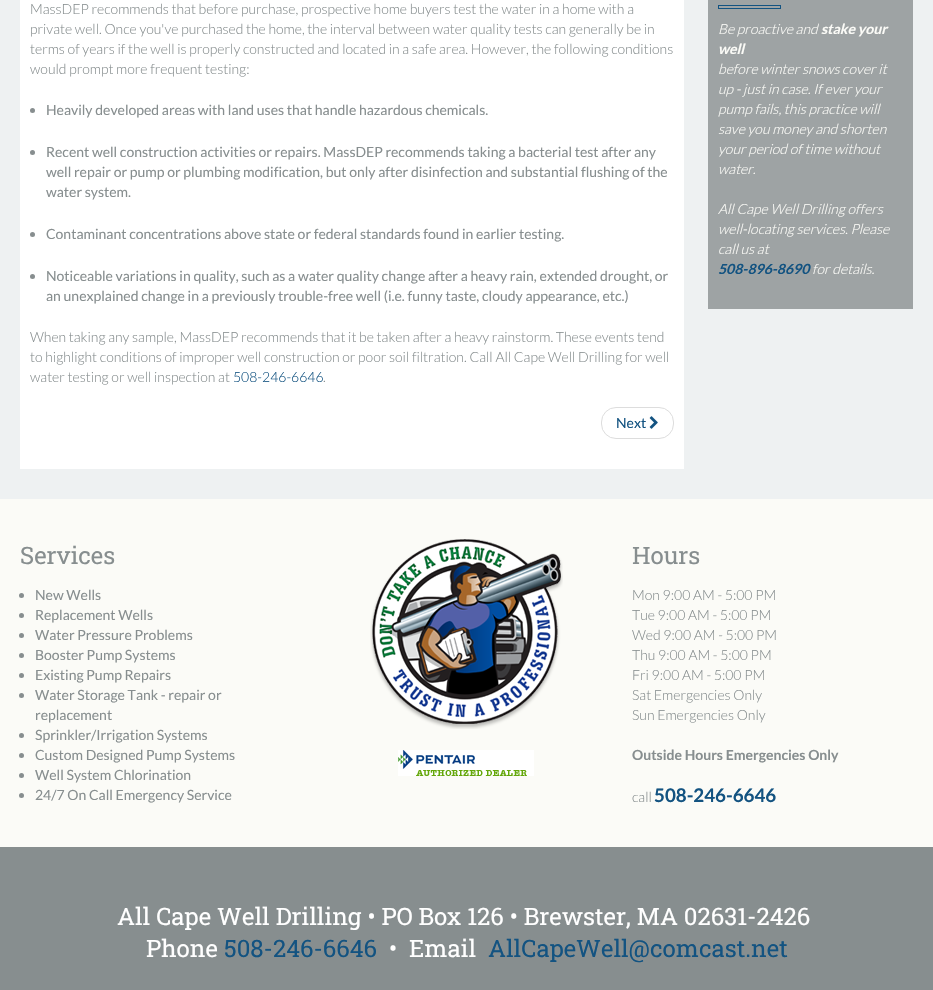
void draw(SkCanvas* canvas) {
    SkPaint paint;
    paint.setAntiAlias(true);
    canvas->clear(0xFFFBFBF7);
    paint.setColor(0xFFEEF1F2);
    canvas->drawRect(SkRect::MakeXYWH(0, 0, 933, 499), paint);
    paint.setColor(0xFFFFFFFF);
    canvas->drawRect(SkRect::MakeXYWH(20, 0, 664, 469), paint);
    SkFont font1(fontMgr->matchFamilyStyle("Lato", SkFontStyle(300, SkFontStyle::kNormal_Width, SkFontStyle::kUpright_Slant)), 14);
    font1.setSubpixel(true);
    paint.setColor(0xFF878E8F);
    canvas->drawString("MassDEP recommends that before purchase, prospective home buyers test the water in a home with a", 30, 14, font1, paint);
    canvas->drawString("private well. Once you've purchased the home, the interval between water quality tests can generally be in", 30, 34, font1, paint);
    canvas->drawString("terms of years if the well is properly constructed and located in a safe area. However, the following conditions", 30, 54, font1, paint);
    canvas->drawString("would prompt more frequent testing:", 30, 74, font1, paint);
    canvas->drawCircle(32.5f, 110.5f, 2.5f, paint);
    SkFont font2(fontMgr->matchFamilyStyle("Lato", SkFontStyle::Normal()), 14);
    font2.setSubpixel(true);
    canvas->drawString("Heavily developed areas with land uses that handle hazardous chemicals.", 46, 115, font2, paint);
    canvas->drawCircle(32.5f, 152.5f, 2.5f, paint);
    canvas->drawString("Recent well construction activities or repairs. MassDEP recommends taking a bacterial test after any", 46, 157, font2, paint);
    canvas->drawString("well repair or pump or plumbing modification, but only after disinfection and substantial flushing of the", 46, 177, font2, paint);
    canvas->drawString("water system.", 46, 197, font2, paint);
    canvas->drawCircle(32.5f, 234.5f, 2.5f, paint);
    canvas->drawString("Contaminant concentrations above state or federal standards found in earlier testing.", 46, 239, font2, paint);
    canvas->drawCircle(32.5f, 276.5f, 2.5f, paint);
    canvas->drawString("Noticeable variations in quality, such as a water quality change after a heavy rain, extended drought, or", 46, 281, font2, paint);
    canvas->drawString("an unexplained change in a previously trouble-free well (i.e. funny taste, cloudy appearance, etc.)", 46, 301, font2, paint);
    canvas->drawString("When taking any sample, MassDEP recommends that it be taken after a heavy rainstorm. These events tend", 30, 342, font1, paint);
    canvas->drawString("to highlight conditions of improper well construction or poor soil filtration. Call All Cape Well Drilling for well", 30, 362, font1, paint);
    canvas->drawString("water testing or well inspection at", 30, 382, font1, paint);
    paint.setColor(0xFF135381);
    canvas->drawString("508-246-6646", 233, 382, font1, paint);
    paint.setColor(0xFF878E8F);
    canvas->drawString(".", 323, 382, font1, paint);
    paint.setStyle(SkPaint::kStroke_Style);
    paint.setStrokeWidth(1);
    paint.setColor(0xFFDDDDDD);
    canvas->drawRoundRect(SkRect::MakeXYWH(601.5f, 407.5f, 72, 31), 14.5f, 14.5f, paint);
    paint.setStyle(SkPaint::kFill_Style);
    paint.setColor(0xFF135381);
    canvas->drawString("Next", 616, 428, font2, paint);
    canvas->drawImageRect(SkImages::DeferredFromEncodedData(SkData::MakeFromFileName("img1.png")), SkRect::MakeXYWH(649, 416, 9, 13), SkSamplingOptions());
    paint.setColor(0xFF9EA3A4);
    canvas->drawRect(SkRect::MakeXYWH(708, 0, 205, 309), paint);
    paint.setStyle(SkPaint::kStroke_Style);
    paint.setColor(0xFF135381);
    canvas->drawRect(SkRect::MakeXYWH(718.5f, 5.5f, 62, 3), paint);
    SkFont font3(fontMgr->matchFamilyStyle("Lato", SkFontStyle(300, SkFontStyle::kNormal_Width, SkFontStyle::kItalic_Slant)), 14);
    font3.setSubpixel(true);
    paint.setStyle(SkPaint::kFill_Style);
    paint.setColor(0xFFFBFBF7);
    canvas->drawString("Be proactive and", 718, 34, font3, paint);
    SkFont font4(fontMgr->matchFamilyStyle("Lato", SkFontStyle::BoldItalic()), 14);
    font4.setSubpixel(true);
    canvas->drawString("stake your", 821, 34, font4, paint);
    canvas->drawString("well", 718, 54, font4, paint);
    canvas->drawString("before winter snows cover it", 718, 74, font3, paint);
    canvas->drawString("up - just in case. If ever your", 718, 94, font3, paint);
    canvas->drawString("pump fails, this practice will", 718, 114, font3, paint);
    canvas->drawString("save you money and shorten", 718, 134, font3, paint);
    canvas->drawString("your period of time without", 718, 154, font3, paint);
    canvas->drawString("water.", 718, 174, font3, paint);
    canvas->drawString("All Cape Well Drilling offers", 718, 214, font3, paint);
    canvas->drawString("well-locating services. Please", 718, 234, font3, paint);
    canvas->drawString("call us at", 718, 254, font3, paint);
    paint.setColor(0xFF135381);
    canvas->drawString("508-896-8690", 718, 274, font4, paint);
    paint.setColor(0xFFFBFBF7);
    canvas->drawString("for details.", 812, 274, font3, paint);
    SkFont font5(fontMgr->matchFamilyStyle("Roboto Slab", SkFontStyle::Normal()), 24);
    font5.setSubpixel(true);
    paint.setColor(0xFF878E8F);
    canvas->drawString("Services", 20, 564, font5, paint);
    canvas->drawCircle(21.5f, 595.5f, 2.5f, paint);
    canvas->drawString("New Wells", 35, 600, font2, paint);
    canvas->drawCircle(21.5f, 615.5f, 2.5f, paint);
    canvas->drawString("Replacement Wells", 35, 620, font2, paint);
    canvas->drawCircle(21.5f, 635.5f, 2.5f, paint);
    canvas->drawString("Water Pressure Problems", 35, 640, font2, paint);
    canvas->drawCircle(21.5f, 655.5f, 2.5f, paint);
    canvas->drawString("Booster Pump Systems", 35, 660, font2, paint);
    canvas->drawCircle(21.5f, 675.5f, 2.5f, paint);
    canvas->drawString("Existing Pump Repairs", 35, 680, font2, paint);
    canvas->drawCircle(21.5f, 695.5f, 2.5f, paint);
    canvas->drawString("Water Storage Tank - repair or", 35, 700, font2, paint);
    canvas->drawString("replacement", 35, 720, font2, paint);
    canvas->drawCircle(21.5f, 735.5f, 2.5f, paint);
    canvas->drawString("Sprinkler/Irrigation Systems", 35, 740, font2, paint);
    canvas->drawCircle(21.5f, 755.5f, 2.5f, paint);
    canvas->drawString("Custom Designed Pump Systems", 35, 760, font2, paint);
    canvas->drawCircle(21.5f, 775.5f, 2.5f, paint);
    canvas->drawString("Well System Chlorination", 35, 780, font2, paint);
    canvas->drawCircle(21.5f, 795.5f, 2.5f, paint);
    canvas->drawString("24/7 On Call Emergency Service", 35, 800, font2, paint);
    canvas->drawImageRect(SkImages::DeferredFromEncodedData(SkData::MakeFromFileName("img2.png")), SkRect::MakeXYWH(370, 539, 193, 190), SkSamplingOptions());
    canvas->drawImageRect(SkImages::DeferredFromEncodedData(SkData::MakeFromFileName("img3.png")), SkRect::MakeXYWH(398, 750, 136, 26), SkSamplingOptions());
    canvas->drawString("Hours", 632, 564, font5, paint);
    canvas->drawString("Mon 9:00 AM - 5:00 PM", 632, 600, font1, paint);
    canvas->drawString("Tue 9:00 AM - 5:00 PM", 632, 620, font1, paint);
    canvas->drawString("Wed 9:00 AM - 5:00 PM", 632, 640, font1, paint);
    canvas->drawString("Thu 9:00 AM - 5:00 PM", 632, 660, font1, paint);
    canvas->drawString("Fri 9:00 AM - 5:00 PM", 632, 680, font1, paint);
    canvas->drawString("Sat Emergencies Only", 632, 700, font1, paint);
    canvas->drawString("Sun Emergencies Only", 632, 720, font1, paint);
    SkFont font6(fontMgr->matchFamilyStyle("Lato", SkFontStyle::Bold()), 14);
    font6.setSubpixel(true);
    canvas->drawString("Outside Hours Emergencies Only", 632, 760, font6, paint);
    canvas->drawString("call", 632, 802, font1, paint);
    SkFont font7(fontMgr->matchFamilyStyle("Lato", SkFontStyle::Bold()), 18.75f);
    font7.setSubpixel(true);
    paint.setColor(0xFF135381);
    canvas->drawString("508-246-6646", 654, 802, font7, paint);
    paint.setColor(0xFF878E8F);
    canvas->drawRect(SkRect::MakeXYWH(0, 847, 933, 143), paint);
    paint.setColor(0xFFFFFFFF);
    canvas->drawString("All Cape Well Drilling • PO Box 126 • Brewster, MA 02631-2426", 117, 925, font5, paint);
    canvas->drawString("Phone", 146, 957, font5, paint);
    paint.setColor(0xFF135381);
    canvas->drawString("508-246-6646", 224, 957, font5, paint);
    paint.setColor(0xFFFFFFFF);
    canvas->drawString("•  Email", 389, 957, font5, paint);
    paint.setColor(0xFF135381);
    canvas->drawString("AllCapeWell@comcast.net", 488, 957, font5, paint);
}
